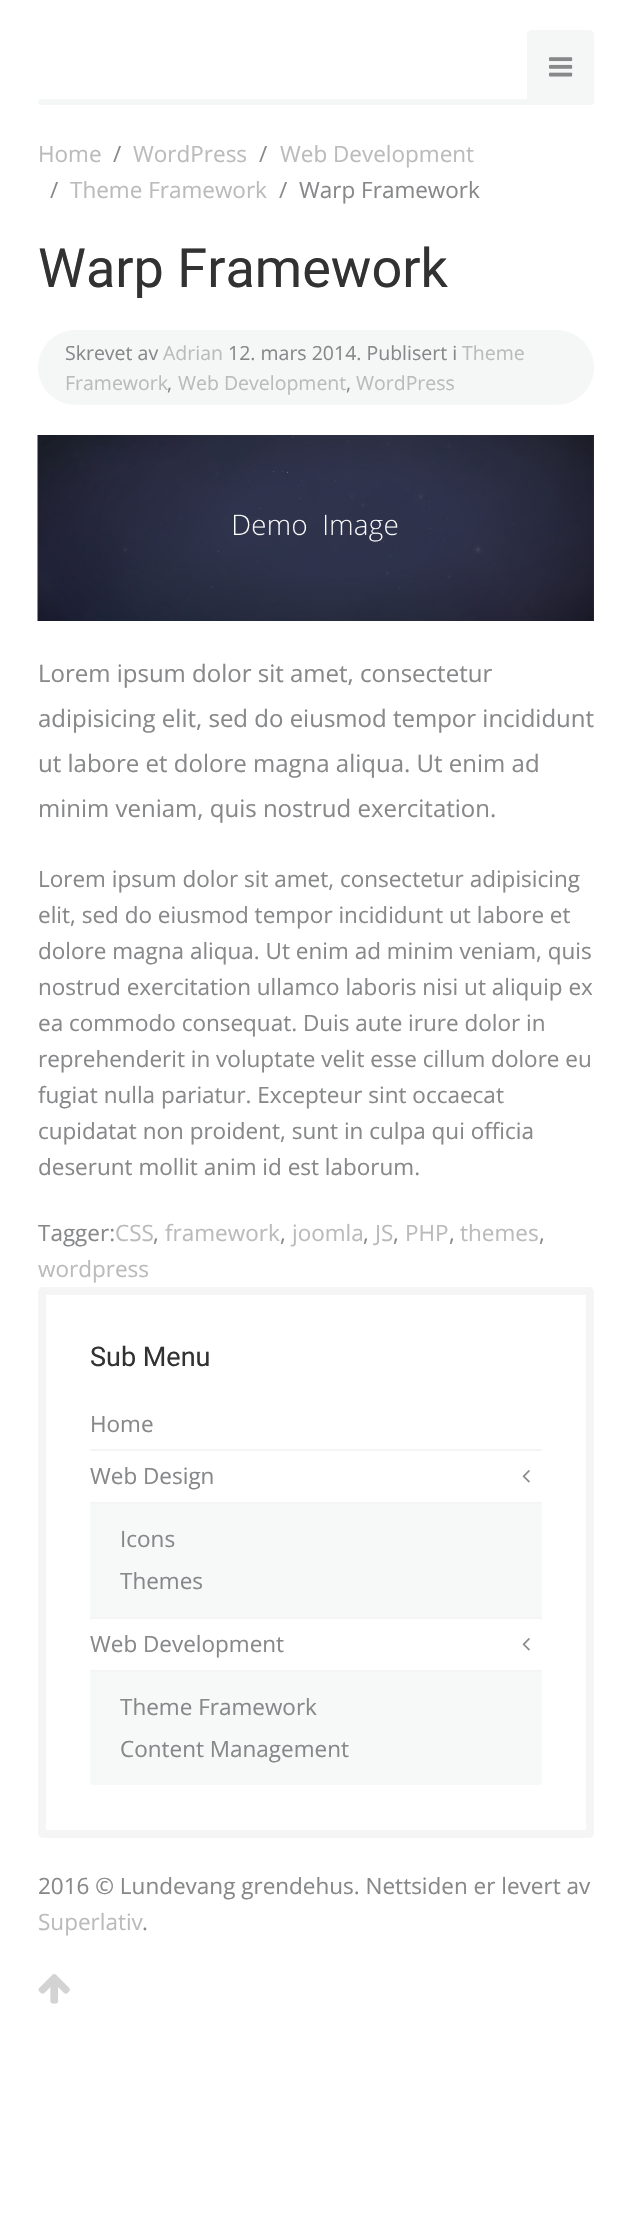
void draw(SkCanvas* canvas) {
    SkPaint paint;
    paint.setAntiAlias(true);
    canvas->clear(0xFFFFFFFF);
    paint.setColor(0xFFF5F6F6);
    canvas->drawRoundRect(SkRect::MakeXYWH(38, 99, 556, 6), 3, 3, paint);
    canvas->drawRoundRect(SkRect::MakeXYWH(527, 30, 67, 75), 5, 5, paint);
    canvas->drawImageRect(SkImages::DeferredFromEncodedData(SkData::MakeFromFileName("img1.png")), SkRect::MakeXYWH(549, 57, 24, 20), SkSamplingOptions());
    SkFont font1(fontMgr->matchFamilyStyle("Open Sans", SkFontStyle::Normal()), 22.5f);
    font1.setSubpixel(true);
    paint.setColor(0xFFBBBBBB);
    canvas->drawString("Home", 38, 162, font1, paint);
    paint.setColor(0xFF87888A);
    canvas->drawString("/", 113, 162, font1, paint);
    paint.setColor(0xFFBBBBBB);
    canvas->drawString("WordPress", 133, 162, font1, paint);
    paint.setColor(0xFF87888A);
    canvas->drawString("/", 259, 162, font1, paint);
    paint.setColor(0xFFBBBBBB);
    canvas->drawString("Web Development", 280, 162, font1, paint);
    paint.setColor(0xFF87888A);
    canvas->drawString("/", 50, 198, font1, paint);
    paint.setColor(0xFFBBBBBB);
    canvas->drawString("Theme Framework", 70, 198, font1, paint);
    paint.setColor(0xFF87888A);
    canvas->drawString("/", 279, 198, font1, paint);
    canvas->drawString("Warp Framework", 299, 198, font1, paint);
    SkFont font2(fontMgr->matchFamilyStyle("Roboto", SkFontStyle::Normal()), 54);
    font2.setSubpixel(true);
    paint.setColor(0xFF323232);
    canvas->drawString("Warp Framework", 38, 287, font2, paint);
    paint.setColor(0xFFF5F6F6);
    canvas->drawRoundRect(SkRect::MakeXYWH(38, 330, 556, 75), 37.5f, 37.5f, paint);
    SkFont font3(fontMgr->matchFamilyStyle("Open Sans", SkFontStyle::Normal()), 19.5f);
    font3.setSubpixel(true);
    paint.setColor(0xFF87888A);
    canvas->drawString("Skrevet av", 65, 360, font3, paint);
    paint.setColor(0xFFBBBBBB);
    canvas->drawString("Adrian", 163, 360, font3, paint);
    paint.setColor(0xFF87888A);
    canvas->drawString("12. mars 2014. Publisert i", 228, 360, font3, paint);
    paint.setColor(0xFFBBBBBB);
    canvas->drawString("Theme", 462, 360, font3, paint);
    canvas->drawString("Framework", 65, 390, font3, paint);
    paint.setColor(0xFF87888A);
    canvas->drawString(",", 167, 390, font3, paint);
    paint.setColor(0xFFBBBBBB);
    canvas->drawString("Web Development", 178, 390, font3, paint);
    paint.setColor(0xFF87888A);
    canvas->drawString(",", 346, 390, font3, paint);
    paint.setColor(0xFFBBBBBB);
    canvas->drawString("WordPress", 356, 390, font3, paint);
    canvas->drawImageRect(SkImages::DeferredFromEncodedData(SkData::MakeFromFileName("img2.png")), SkRect::MakeXYWH(37, 435, 557, 186), SkSamplingOptions());
    SkFont font4(fontMgr->matchFamilyStyle("Open Sans", SkFontStyle::Normal()), 24);
    font4.setSubpixel(true);
    paint.setColor(0xFF87888A);
    canvas->drawString("Lorem ipsum dolor sit amet, consectetur", 38, 682, font4, paint);
    canvas->drawString("adipisicing elit, sed do eiusmod tempor incididunt", 38, 727, font4, paint);
    canvas->drawString("ut labore et dolore magna aliqua. Ut enim ad", 38, 772, font4, paint);
    canvas->drawString("minim veniam, quis nostrud exercitation.", 38, 817, font4, paint);
    canvas->drawString("Lorem ipsum dolor sit amet, consectetur adipisicing", 38, 887, font1, paint);
    canvas->drawString("elit, sed do eiusmod tempor incididunt ut labore et", 38, 923, font1, paint);
    canvas->drawString("dolore magna aliqua. Ut enim ad minim veniam, quis", 38, 959, font1, paint);
    canvas->drawString("nostrud exercitation ullamco laboris nisi ut aliquip ex", 38, 995, font1, paint);
    canvas->drawString("ea commodo consequat. Duis aute irure dolor in", 38, 1031, font1, paint);
    canvas->drawString("reprehenderit in voluptate velit esse cillum dolore eu", 38, 1067, font1, paint);
    canvas->drawString("fugiat nulla pariatur. Excepteur sint occaecat", 38, 1103, font1, paint);
    canvas->drawString("cupidatat non proident, sunt in culpa qui officia", 38, 1139, font1, paint);
    canvas->drawString("deserunt mollit anim id est laborum.", 38, 1175, font1, paint);
    canvas->drawString("Tagger:", 38, 1241, font1, paint);
    paint.setColor(0xFFBBBBBB);
    canvas->drawString("CSS", 115, 1241, font1, paint);
    paint.setColor(0xFF87888A);
    canvas->drawString(",", 153, 1241, font1, paint);
    paint.setColor(0xFFBBBBBB);
    canvas->drawString("framework", 165, 1241, font1, paint);
    paint.setColor(0xFF87888A);
    canvas->drawString(",", 280, 1241, font1, paint);
    paint.setColor(0xFFBBBBBB);
    canvas->drawString("joomla", 292, 1241, font1, paint);
    paint.setColor(0xFF87888A);
    canvas->drawString(",", 363, 1241, font1, paint);
    paint.setColor(0xFFBBBBBB);
    canvas->drawString("JS", 375, 1241, font1, paint);
    paint.setColor(0xFF87888A);
    canvas->drawString(",", 393, 1241, font1, paint);
    paint.setColor(0xFFBBBBBB);
    canvas->drawString("PHP", 405, 1241, font1, paint);
    paint.setColor(0xFF87888A);
    canvas->drawString(",", 449, 1241, font1, paint);
    paint.setColor(0xFFBBBBBB);
    canvas->drawString("themes", 460, 1241, font1, paint);
    paint.setColor(0xFF87888A);
    canvas->drawString(",", 539, 1241, font1, paint);
    paint.setColor(0xFFBBBBBB);
    canvas->drawString("wordpress", 38, 1277, font1, paint);
    paint.setStyle(SkPaint::kStroke_Style);
    paint.setStrokeWidth(8);
    paint.setColor(0xFFF5F5F5);
    canvas->drawRoundRect(SkRect::MakeXYWH(42, 1291, 548, 543), 1, 1, paint);
    SkFont font5(fontMgr->matchFamilyStyle("Roboto", SkFontStyle::Normal()), 27);
    font5.setSubpixel(true);
    paint.setStyle(SkPaint::kFill_Style);
    paint.setColor(0xFF323232);
    canvas->drawString("Sub Menu", 90, 1366, font5, paint);
    paint.setColor(0xFF87888A);
    canvas->drawString("Home", 90, 1432, font1, paint);
    paint.setColor(0xFFF5F5F5);
    canvas->drawRect(SkRect::MakeXYWH(90, 1449, 452, 2), paint);
    paint.setColor(0xFF87888A);
    canvas->drawString("Web Design", 90, 1484, font1, paint);
    canvas->drawImageRect(SkImages::DeferredFromEncodedData(SkData::MakeFromFileName("img3.png")), SkRect::MakeXYWH(522, 1470, 8, 13), SkSamplingOptions());
    paint.setColor(0xFFF7F8F8);
    canvas->drawRect(SkRect::MakeXYWH(90, 1504, 452, 113), paint);
    paint.setColor(0xFFF5F5F5);
    canvas->drawRect(SkRect::MakeXYWH(90, 1502, 452, 2), paint);
    paint.setColor(0xFF87888A);
    canvas->drawString("Icons", 120, 1547, font1, paint);
    canvas->drawString("Themes", 120, 1589, font1, paint);
    paint.setColor(0xFFF5F5F5);
    canvas->drawRect(SkRect::MakeXYWH(90, 1617, 452, 2), paint);
    paint.setColor(0xFF87888A);
    canvas->drawString("Web Development", 90, 1652, font1, paint);
    canvas->drawImageRect(SkImages::DeferredFromEncodedData(SkData::MakeFromFileName("img3.png")), SkRect::MakeXYWH(522, 1638, 8, 13), SkSamplingOptions());
    paint.setColor(0xFFF7F8F8);
    canvas->drawRect(SkRect::MakeXYWH(90, 1672, 452, 113), paint);
    paint.setColor(0xFFF5F5F5);
    canvas->drawRect(SkRect::MakeXYWH(90, 1670, 452, 2), paint);
    paint.setColor(0xFF87888A);
    canvas->drawString("Theme Framework", 120, 1715, font1, paint);
    canvas->drawString("Content Management", 120, 1757, font1, paint);
    canvas->drawString("2016 © Lundevang grendehus. Nettsiden er levert av", 38, 1894, font1, paint);
    paint.setColor(0xFFBBBBBB);
    canvas->drawString("Superlativ", 38, 1930, font1, paint);
    paint.setColor(0xFF87888A);
    canvas->drawString(".", 142, 1930, font1, paint);
    canvas->drawImageRect(SkImages::DeferredFromEncodedData(SkData::MakeFromFileName("img4.png")), SkRect::MakeXYWH(38, 1974, 32, 30), SkSamplingOptions());
}
